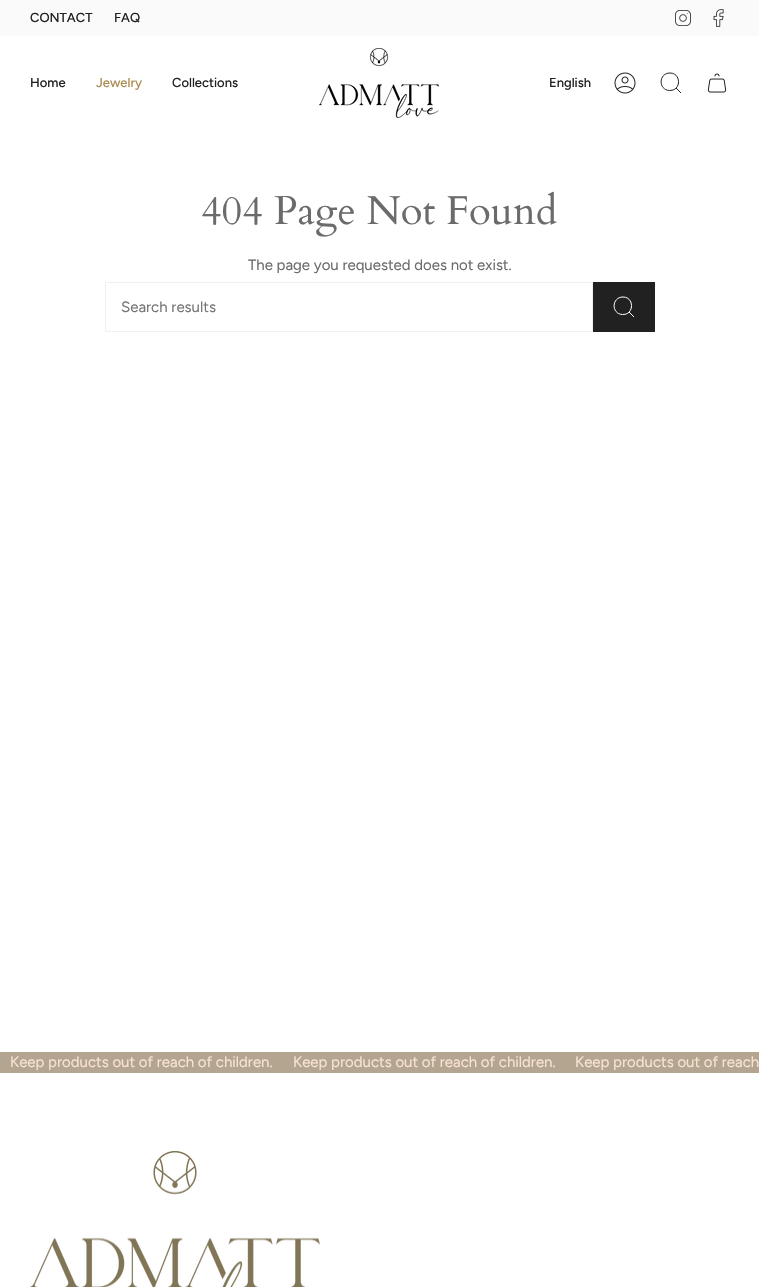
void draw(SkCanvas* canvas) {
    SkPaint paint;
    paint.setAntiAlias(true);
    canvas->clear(0xFFFFFFFF);
    paint.setColor(0xFFFAFAFA);
    canvas->drawRect(SkRect::MakeXYWH(0, 0, 759, 36), paint);
    SkFont font1(fontMgr->matchFamilyStyle("Figtree", SkFontStyle(500, SkFontStyle::kNormal_Width, SkFontStyle::kUpright_Slant)), 13);
    font1.setSubpixel(true);
    paint.setColor(0xFF212121);
    canvas->drawString("CONTACT", 30, 22, font1, paint);
    canvas->drawString("FAQ", 114, 22, font1, paint);
    canvas->drawImageRect(SkImages::DeferredFromEncodedData(SkData::MakeFromFileName("img1.png")), SkRect::MakeXYWH(675, 10, 16, 16), SkSamplingOptions());
    canvas->drawImageRect(SkImages::DeferredFromEncodedData(SkData::MakeFromFileName("img2.png")), SkRect::MakeXYWH(713, 9, 11, 18), SkSamplingOptions());
    canvas->drawString("Home", 30, 87, font1, paint);
    paint.setColor(0xFFAB8C52);
    canvas->drawString("Jewelry", 96, 87, font1, paint);
    paint.setColor(0xFF212121);
    canvas->drawString("Collections", 172, 87, font1, paint);
    canvas->drawImageRect(SkImages::DeferredFromEncodedData(SkData::MakeFromFileName("img3.png")), SkRect::MakeXYWH(319, 48, 120, 70), SkSamplingOptions());
    canvas->drawString("English", 549, 87, font1, paint);
    canvas->drawImageRect(SkImages::DeferredFromEncodedData(SkData::MakeFromFileName("img4.png")), SkRect::MakeXYWH(614, 72, 22, 22), SkSamplingOptions());
    paint.setStyle(SkPaint::kStroke_Style);
    paint.setStrokeWidth(1);
    canvas->drawPath(SkPathBuilder().moveTo(670, 73).cubicTo(681.5f, 73, 681.5f, 91, 669.5f, 90.5f).cubicTo(658, 90, 658.5f, 73, 670, 73).close().moveTo(676, 88).lineTo(681, 93).detach(), paint);
    canvas->drawImageRect(SkImages::DeferredFromEncodedData(SkData::MakeFromFileName("img5.png")), SkRect::MakeXYWH(707, 73, 20, 20), SkSamplingOptions());
    SkFont font2(fontMgr->matchFamilyStyle("Cardo", SkFontStyle::Normal()), 40.25f);
    font2.setSubpixel(true);
    paint.setStyle(SkPaint::kFill_Style);
    paint.setColor(0xFF6C6B6B);
    canvas->drawString("404 Page Not Found", 201, 224, font2, paint);
    SkFont font3(fontMgr->matchFamilyStyle("Figtree", SkFontStyle::Normal()), 15);
    font3.setSubpixel(true);
    canvas->drawString("The page you requested does not exist.", 248, 270, font3, paint);
    paint.setStyle(SkPaint::kStroke_Style);
    paint.setColor(0xFFF0F0F0);
    canvas->drawRect(SkRect::MakeXYWH(105.5f, 282.5f, 487, 49), paint);
    paint.setStyle(SkPaint::kFill_Style);
    paint.setColor(0xFF757575);
    canvas->drawString("Search results", 121, 312, font3, paint);
    paint.setColor(0xFF212121);
    canvas->drawRect(SkRect::MakeXYWH(593, 282, 62, 50), paint);
    paint.setStyle(SkPaint::kStroke_Style);
    paint.setColor(0xFFFFFFFF);
    canvas->drawPath(SkPathBuilder().moveTo(623, 297).cubicTo(634.5f, 297, 634.5f, 315, 622.5f, 314.5f).cubicTo(611, 314, 611.5f, 297, 623, 297).close().moveTo(629, 312).lineTo(634, 317).detach(), paint);
    paint.setStyle(SkPaint::kFill_Style);
    paint.setColor(0xFFB4A590);
    canvas->drawRect(SkRect::MakeXYWH(0, 1052, 759, 21), paint);
    paint.setColor(0xFFF8E3D2);
    canvas->drawString("Keep products out of reach of children.", 10, 1067, font3, paint);
    canvas->drawString("Keep products out of reach of children.", 293, 1067, font3, paint);
    canvas->drawString("Keep products out of reach", 575, 1067, font3, paint);
    canvas->drawImageRect(SkImages::DeferredFromEncodedData(SkData::MakeFromFileName("img6.png")), SkRect::MakeXYWH(30, 1151, 290, 136), SkSamplingOptions());
}
